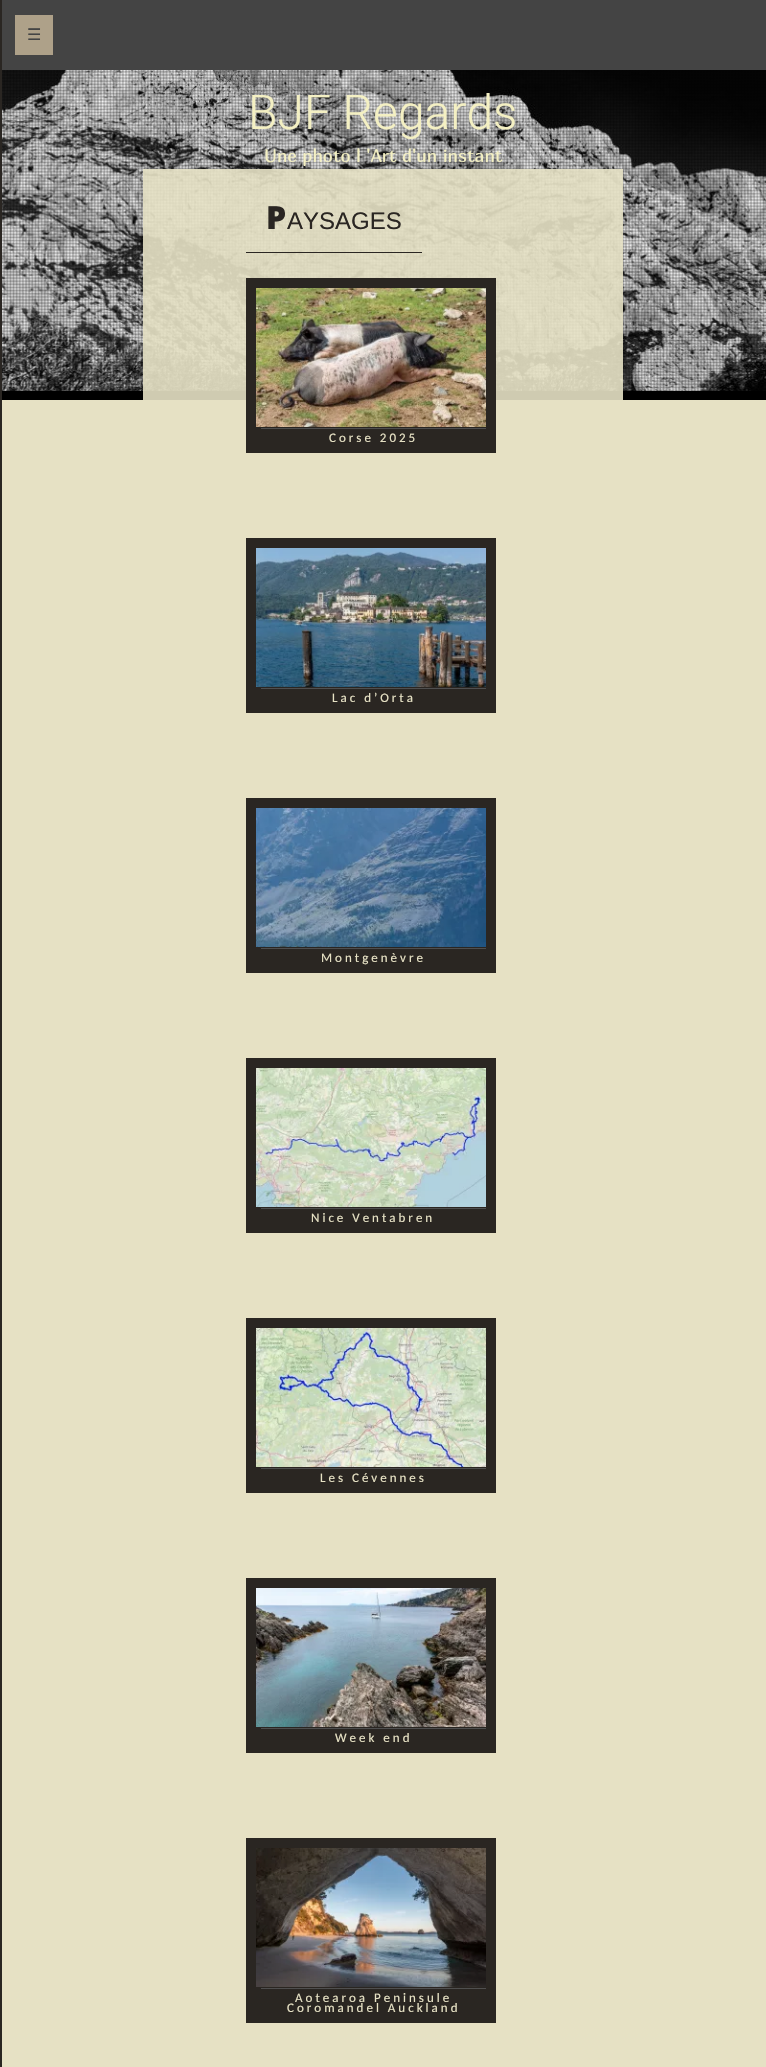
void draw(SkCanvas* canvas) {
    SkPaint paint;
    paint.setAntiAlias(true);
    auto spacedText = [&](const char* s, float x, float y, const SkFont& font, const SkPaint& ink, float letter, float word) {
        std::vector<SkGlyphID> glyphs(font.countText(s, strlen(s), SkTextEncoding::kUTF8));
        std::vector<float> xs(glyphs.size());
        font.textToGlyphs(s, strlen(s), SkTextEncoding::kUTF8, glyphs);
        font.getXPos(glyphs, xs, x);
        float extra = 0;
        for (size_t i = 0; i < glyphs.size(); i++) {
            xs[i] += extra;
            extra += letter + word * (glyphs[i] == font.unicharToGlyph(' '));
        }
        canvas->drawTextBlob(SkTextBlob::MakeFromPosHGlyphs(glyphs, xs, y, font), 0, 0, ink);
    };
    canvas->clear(0xFFE6E1C4);
    paint.setColor(0xFF444444);
    canvas->drawRect(SkRect::MakeXYWH(2, 0, 764, 70), paint);
    paint.setColor(0xFF2A2622);
    canvas->drawRect(SkRect::MakeXYWH(0, 0, 2, 2067), paint);
    paint.setColor(0xFFAEA189);
    canvas->drawRect(SkRect::MakeXYWH(15, 15, 38, 40), paint);
    SkFont font1(fontMgr->matchFamilyStyle("DejaVu Sans", SkFontStyle::Normal()), 16);
    font1.setSubpixel(true);
    paint.setColor(0xFF444444);
    canvas->drawString("☰", 27, 40, font1, paint);
    canvas->drawImageRect(SkImages::DeferredFromEncodedData(SkData::MakeFromFileName("img8.png")), SkRect::MakeXYWH(2, 70, 764, 321), SkSamplingOptions());
    canvas->drawImageRect(SkImages::DeferredFromEncodedData(SkData::MakeFromFileName("img9.png")), SkRect::MakeXYWH(2, 70, 764, 321), SkSamplingOptions());
    SkFont font2(fontMgr->matchFamilyStyle("Roboto", SkFontStyle(300, SkFontStyle::kNormal_Width, SkFontStyle::kUpright_Slant)), 48);
    font2.setSubpixel(true);
    paint.setColor(0xFFF4F0C3);
    canvas->drawString("BJF Regards", 248, 129, font2, paint);
    SkFont font3(fontMgr->matchFamilyStyle("Marmelad", SkFontStyle::Normal()), 18);
    font3.setSubpixel(true);
    canvas->drawString("Une photo l 'Art d'un instant", 264, 162, font3, paint);
    paint.setColor(0xFF000000);
    canvas->drawRect(SkRect::MakeXYWH(2, 391, 764, 9), paint);
    paint.setColor(0xE6E6E1C4);
    canvas->drawRect(SkRect::MakeXYWH(143, 169, 480, 231), paint);
    paint.setColor(0xFF2A2622);
    canvas->drawRect(SkRect::MakeXYWH(246, 252, 176, 1), paint);
    SkFont font4(fontMgr->matchFamilyStyle("Noto Sans", SkFontStyle(900, SkFontStyle::kNormal_Width, SkFontStyle::kUpright_Slant)), 32);
    font4.setSubpixel(true);
    canvas->drawString("P", 266, 229, font4, paint);
    SkFont font5(fontMgr->matchFamilyStyle("Liberation Sans", SkFontStyle::Normal()), 24);
    font5.setSubpixel(true);
    canvas->drawString("AYSAGES", 287, 229, font5, paint);
    canvas->drawRect(SkRect::MakeXYWH(246, 278, 250, 175), paint);
    canvas->drawImageRect(SkImages::DeferredFromEncodedData(SkData::MakeFromFileName("img1.png")), SkRect::MakeXYWH(256, 288, 230, 139), SkSamplingOptions());
    paint.setColor(0xFF4F4F4F);
    canvas->drawRect(SkRect::MakeXYWH(261, 428, 225, 1), paint);
    SkFont font6(fontMgr->matchFamilyStyle("Carlito", SkFontStyle::Normal()), 13);
    font6.setSubpixel(true);
    paint.setColor(0xFFE7E2C5);
    spacedText("Corse 2025", 329, 442, font6, paint, 3, 0);
    paint.setColor(0xFF2A2622);
    canvas->drawRect(SkRect::MakeXYWH(246, 538, 250, 175), paint);
    canvas->drawImageRect(SkImages::DeferredFromEncodedData(SkData::MakeFromFileName("img2.png")), SkRect::MakeXYWH(256, 548, 230, 139), SkSamplingOptions());
    paint.setColor(0xFF4F4F4F);
    canvas->drawRect(SkRect::MakeXYWH(261, 688, 225, 1), paint);
    paint.setColor(0xFFE7E2C5);
    spacedText("Lac d’Orta", 332, 702, font6, paint, 3, 0);
    paint.setColor(0xFF2A2622);
    canvas->drawRect(SkRect::MakeXYWH(246, 798, 250, 175), paint);
    canvas->drawImageRect(SkImages::DeferredFromEncodedData(SkData::MakeFromFileName("img3.png")), SkRect::MakeXYWH(256, 808, 230, 139), SkSamplingOptions());
    paint.setColor(0xFF4F4F4F);
    canvas->drawRect(SkRect::MakeXYWH(261, 948, 225, 1), paint);
    paint.setColor(0xFFE7E2C5);
    spacedText("Montgenèvre", 321, 962, font6, paint, 3, 0);
    paint.setColor(0xFF2A2622);
    canvas->drawRect(SkRect::MakeXYWH(246, 1058, 250, 175), paint);
    canvas->drawImageRect(SkImages::DeferredFromEncodedData(SkData::MakeFromFileName("img4.png")), SkRect::MakeXYWH(256, 1068, 230, 139), SkSamplingOptions());
    paint.setColor(0xFF4F4F4F);
    canvas->drawRect(SkRect::MakeXYWH(261, 1208, 225, 1), paint);
    paint.setColor(0xFFE7E2C5);
    spacedText("Nice Ventabren", 311, 1222, font6, paint, 3, 0);
    paint.setColor(0xFF2A2622);
    canvas->drawRect(SkRect::MakeXYWH(246, 1318, 250, 175), paint);
    canvas->drawImageRect(SkImages::DeferredFromEncodedData(SkData::MakeFromFileName("img5.png")), SkRect::MakeXYWH(256, 1328, 230, 139), SkSamplingOptions());
    paint.setColor(0xFF4F4F4F);
    canvas->drawRect(SkRect::MakeXYWH(261, 1468, 225, 1), paint);
    paint.setColor(0xFFE7E2C5);
    spacedText("Les Cévennes", 320, 1482, font6, paint, 3, 0);
    paint.setColor(0xFF2A2622);
    canvas->drawRect(SkRect::MakeXYWH(246, 1578, 250, 175), paint);
    canvas->drawImageRect(SkImages::DeferredFromEncodedData(SkData::MakeFromFileName("img6.png")), SkRect::MakeXYWH(256, 1588, 230, 139), SkSamplingOptions());
    paint.setColor(0xFF4F4F4F);
    canvas->drawRect(SkRect::MakeXYWH(261, 1728, 225, 1), paint);
    paint.setColor(0xFFE7E2C5);
    spacedText("Week end", 335, 1742, font6, paint, 3, 0);
    paint.setColor(0xFF2A2622);
    canvas->drawRect(SkRect::MakeXYWH(246, 1838, 250, 185), paint);
    canvas->drawImageRect(SkImages::DeferredFromEncodedData(SkData::MakeFromFileName("img7.png")), SkRect::MakeXYWH(256, 1848, 230, 139), SkSamplingOptions());
    paint.setColor(0xFF4F4F4F);
    canvas->drawRect(SkRect::MakeXYWH(261, 1988, 225, 1), paint);
    paint.setColor(0xFFE7E2C5);
    spacedText("Aotearoa Peninsule", 295, 2002, font6, paint, 3, 0);
    spacedText("Coromandel Auckland", 287, 2012, font6, paint, 3, 0);
}
